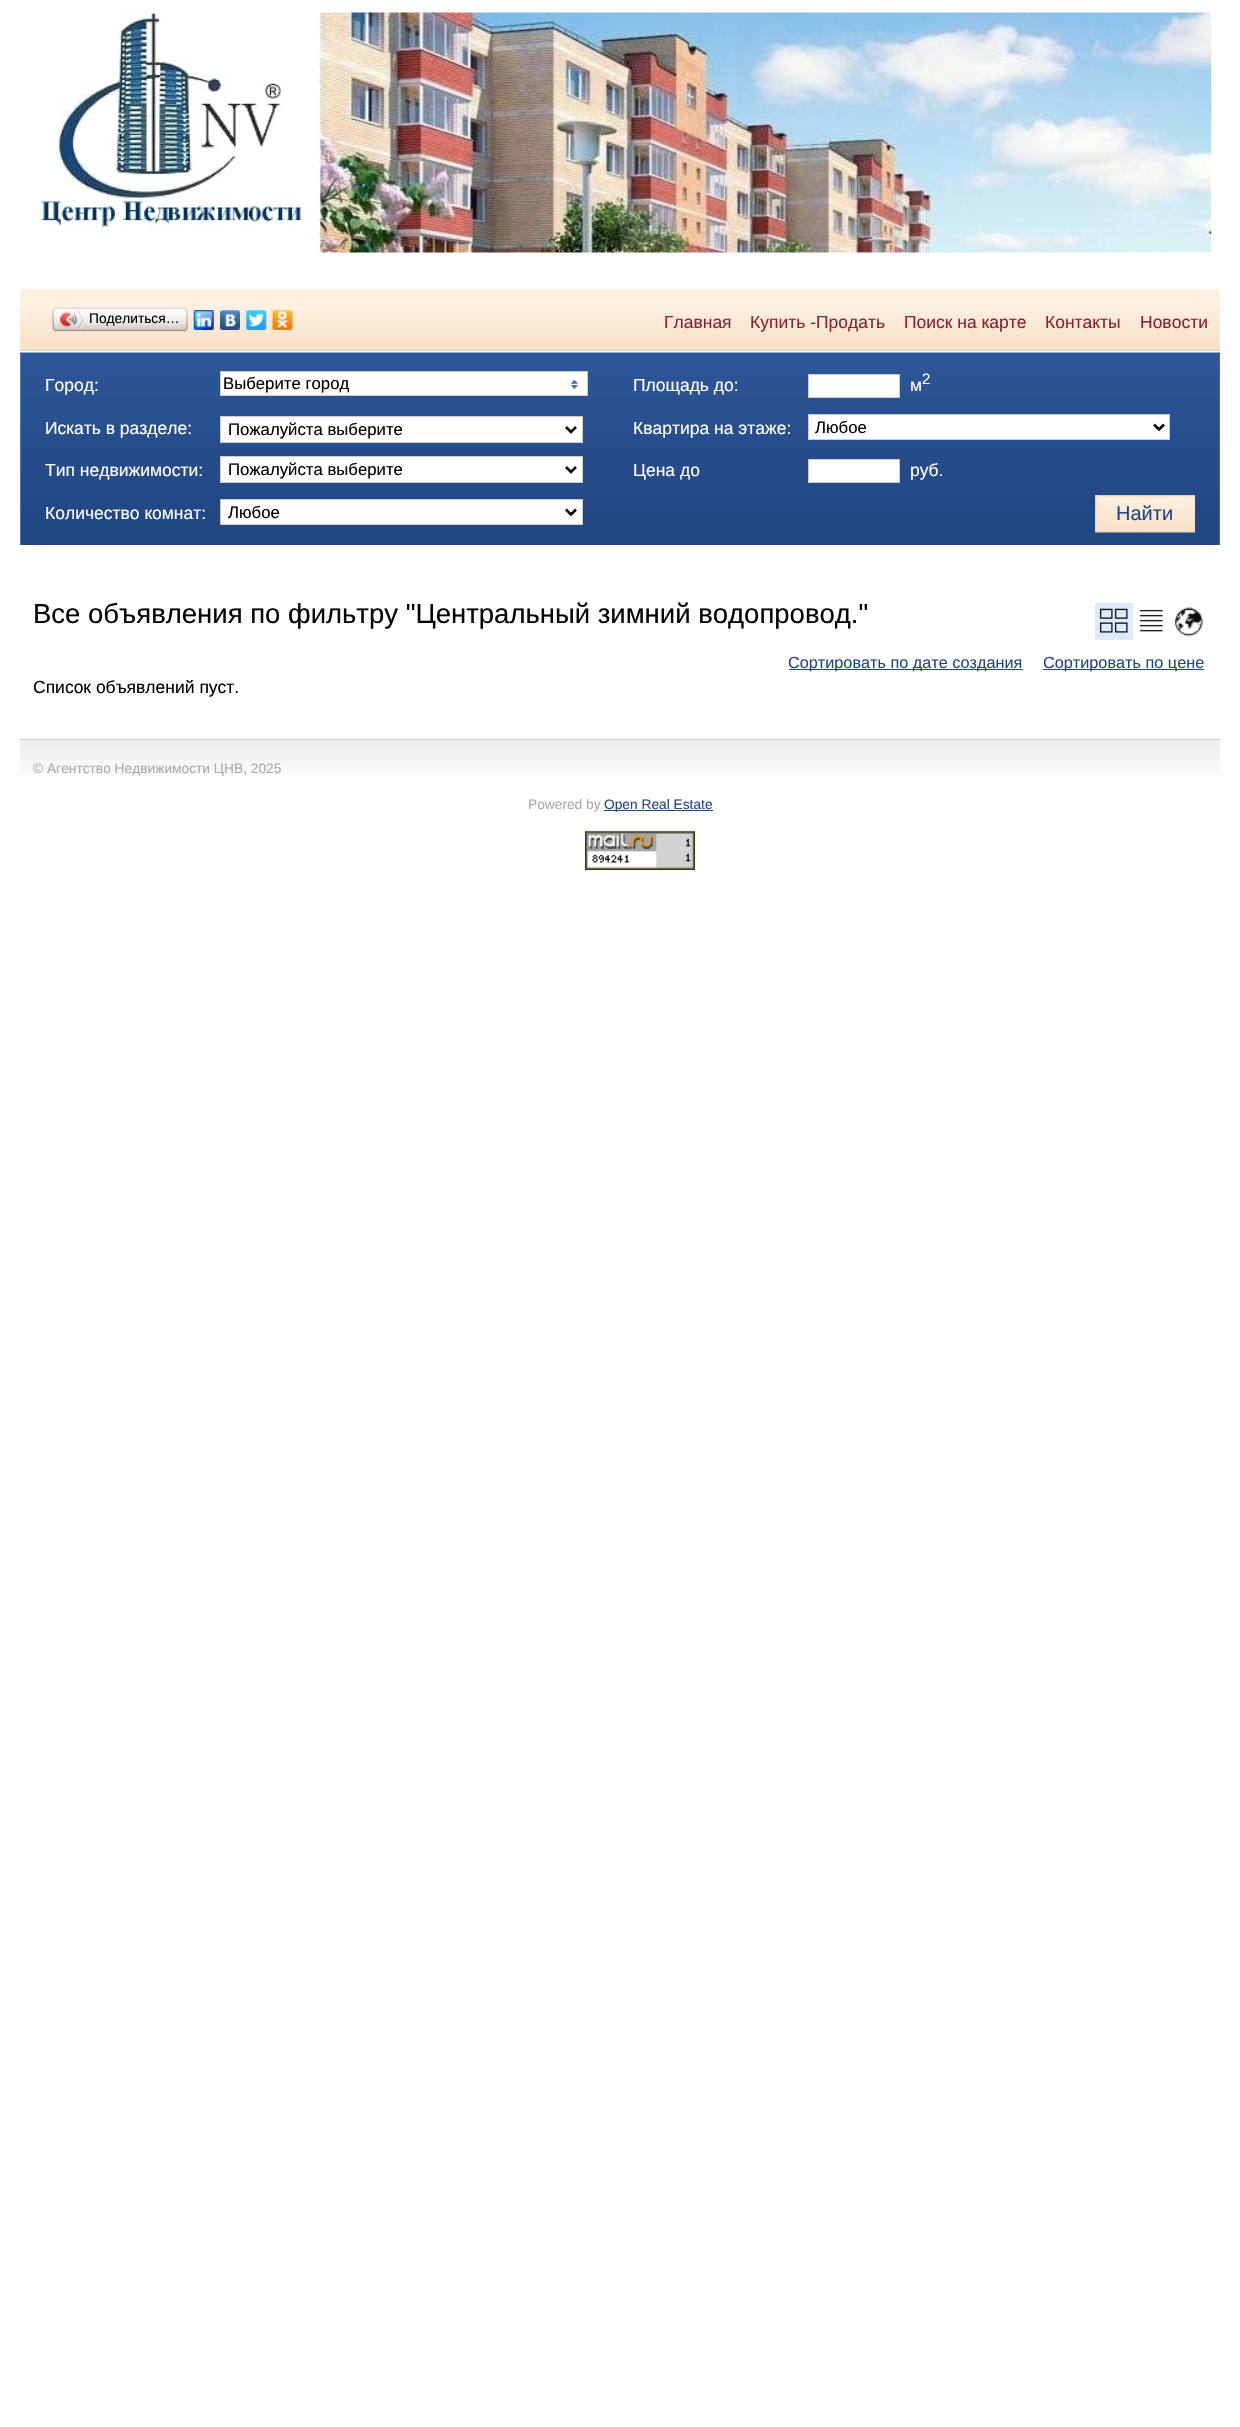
void draw(SkCanvas* canvas) {
    SkPaint paint;
    paint.setAntiAlias(true);
    canvas->clear(0xFFFFFFFF);
    canvas->drawImageRect(SkImages::DeferredFromEncodedData(SkData::MakeFromFileName("img1.png")), SkRect::MakeXYWH(40, 12, 1172, 241), SkSamplingOptions());
    paint.setColor(0xFFFFF0E0);
    canvas->drawRect(SkRect::MakeXYWH(20, 290, 1200, 20), paint);
    canvas->drawImageRect(SkImages::DeferredFromEncodedData(SkData::MakeFromFileName("img2.png")), SkRect::MakeXYWH(20, 310, 1200, 40), SkSamplingOptions());
    paint.setColor(0xFFFEF6EE);
    canvas->drawRect(SkRect::MakeXYWH(20, 289, 1200, 1), paint);
    paint.setColor(0xFFEBD0B4);
    canvas->drawRect(SkRect::MakeXYWH(20, 350, 1200, 1), paint);
    canvas->drawImageRect(SkImages::DeferredFromEncodedData(SkData::MakeFromFileName("img3.png")), SkRect::MakeXYWH(56, 307, 128, 25), SkSamplingOptions());
    canvas->drawImageRect(SkImages::DeferredFromEncodedData(SkData::MakeFromFileName("img4.png")), SkRect::MakeXYWH(52, 307, 5, 25), SkSamplingOptions());
    canvas->drawImageRect(SkImages::DeferredFromEncodedData(SkData::MakeFromFileName("img5.png")), SkRect::MakeXYWH(60, 309, 25, 21), SkSamplingOptions());
    SkFont font1(fontMgr->matchFamilyStyle("Liberation Sans", SkFontStyle::Normal()), 13.75f);
    font1.setSubpixel(true);
    paint.setColor(0xFF000000);
    canvas->drawString("Поделиться…", 89, 323, font1, paint);
    canvas->drawImageRect(SkImages::DeferredFromEncodedData(SkData::MakeFromFileName("img6.png")), SkRect::MakeXYWH(183, 307, 5, 25), SkSamplingOptions());
    canvas->drawImageRect(SkImages::DeferredFromEncodedData(SkData::MakeFromFileName("img7.png")), SkRect::MakeXYWH(193, 310, 21, 20), SkSamplingOptions());
    canvas->drawImageRect(SkImages::DeferredFromEncodedData(SkData::MakeFromFileName("img8.png")), SkRect::MakeXYWH(220, 310, 20, 20), SkSamplingOptions());
    canvas->drawImageRect(SkImages::DeferredFromEncodedData(SkData::MakeFromFileName("img9.png")), SkRect::MakeXYWH(246, 310, 21, 20), SkSamplingOptions());
    canvas->drawImageRect(SkImages::DeferredFromEncodedData(SkData::MakeFromFileName("img10.png")), SkRect::MakeXYWH(272, 310, 21, 20), SkSamplingOptions());
    SkFont font2(fontMgr->matchFamilyStyle("Liberation Sans", SkFontStyle::Normal()), 17.5f);
    font2.setSubpixel(true);
    paint.setColor(0xFF852432);
    canvas->drawString("Главная", 664, 328, font2, paint);
    canvas->drawString("Купить -Продать", 750, 328, font2, paint);
    canvas->drawString("Поиск на карте", 904, 328, font2, paint);
    canvas->drawString("Контакты", 1045, 328, font2, paint);
    canvas->drawString("Новости", 1140, 328, font2, paint);
    canvas->drawImageRect(SkImages::DeferredFromEncodedData(SkData::MakeFromFileName("img11.png")), SkRect::MakeXYWH(20, 352, 1200, 193), SkSamplingOptions());
    paint.setColor(0xFF3C69AC);
    canvas->drawRect(SkRect::MakeXYWH(1219, 353, 1, 192), paint);
    paint.setColor(0xFF4E79BB);
    canvas->drawRect(SkRect::MakeXYWH(20, 353, 1, 192), paint);
    paint.setColor(0xFFFFFFFF);
    canvas->drawString("Город:", 45, 391, font2, paint);
    canvas->drawRect(SkRect::MakeXYWH(220.5f, 371.5f, 367, 24), paint);
    paint.setStyle(SkPaint::kStroke_Style);
    paint.setStrokeWidth(1);
    paint.setColor(0xFFCCCCCC);
    canvas->drawRect(SkRect::MakeXYWH(220.5f, 371.5f, 367, 24), paint);
    SkFont font3(fontMgr->matchFamilyStyle("Liberation Sans", SkFontStyle::Normal()), 16.75f);
    font3.setSubpixel(true);
    paint.setStyle(SkPaint::kFill_Style);
    paint.setColor(0xFF000000);
    canvas->drawString("Выберите город", 223, 389, font3, paint);
    canvas->drawImageRect(SkImages::DeferredFromEncodedData(SkData::MakeFromFileName("img12.png")), SkRect::MakeXYWH(571, 379, 7, 10), SkSamplingOptions());
    paint.setColor(0xFFFFFFFF);
    canvas->drawString("Площадь до:", 633, 391, font2, paint);
    canvas->drawRect(SkRect::MakeXYWH(808.5f, 374.5f, 91, 23), paint);
    paint.setStyle(SkPaint::kStroke_Style);
    paint.setColor(0xFFCCCCCC);
    canvas->drawRect(SkRect::MakeXYWH(808.5f, 374.5f, 91, 23), paint);
    paint.setStyle(SkPaint::kFill_Style);
    paint.setColor(0xFFFFFFFF);
    canvas->drawString("м", 910, 391, font2, paint);
    SkFont font4(fontMgr->matchFamilyStyle("Liberation Sans", SkFontStyle::Normal()), 15);
    font4.setSubpixel(true);
    canvas->drawString("2", 922, 384, font4, paint);
    canvas->drawString("Искать в разделе:", 45, 434, font2, paint);
    canvas->drawRect(SkRect::MakeXYWH(220.5f, 416.5f, 362, 26), paint);
    paint.setStyle(SkPaint::kStroke_Style);
    paint.setColor(0xFFCCCCCC);
    canvas->drawRect(SkRect::MakeXYWH(220.5f, 416.5f, 362, 26), paint);
    paint.setStrokeWidth(2.5f);
    paint.setColor(0xFF000000);
    canvas->drawPath(SkPathBuilder().moveTo(566, 427).lineTo(571, 432).lineTo(576, 427).detach(), paint);
    paint.setStyle(SkPaint::kFill_Style);
    canvas->drawString("Пожалуйста выберите", 228, 435, font3, paint);
    paint.setColor(0xFFFFFFFF);
    canvas->drawString("Квартира на этаже:", 633, 434, font2, paint);
    canvas->drawRect(SkRect::MakeXYWH(808.5f, 414.5f, 361, 25), paint);
    paint.setStyle(SkPaint::kStroke_Style);
    paint.setStrokeWidth(1);
    paint.setColor(0xFFCCCCCC);
    canvas->drawRect(SkRect::MakeXYWH(808.5f, 414.5f, 361, 25), paint);
    paint.setStrokeWidth(2.5f);
    paint.setColor(0xFF000000);
    canvas->drawPath(SkPathBuilder().moveTo(1154, 424.5f).lineTo(1159, 429.5f).lineTo(1164, 424.5f).detach(), paint);
    paint.setStyle(SkPaint::kFill_Style);
    canvas->drawString("Любое", 815, 433, font3, paint);
    paint.setColor(0xFFFFFFFF);
    canvas->drawString("Тип недвижимости:", 45, 476, font2, paint);
    canvas->drawRect(SkRect::MakeXYWH(220.5f, 456.5f, 362, 26), paint);
    paint.setStyle(SkPaint::kStroke_Style);
    paint.setStrokeWidth(1);
    paint.setColor(0xFFCCCCCC);
    canvas->drawRect(SkRect::MakeXYWH(220.5f, 456.5f, 362, 26), paint);
    paint.setStrokeWidth(2.5f);
    paint.setColor(0xFF000000);
    canvas->drawPath(SkPathBuilder().moveTo(566, 467).lineTo(571, 472).lineTo(576, 467).detach(), paint);
    paint.setStyle(SkPaint::kFill_Style);
    canvas->drawString("Пожалуйста выберите", 228, 475, font3, paint);
    paint.setColor(0xFFFFFFFF);
    canvas->drawString("Цена до", 633, 476, font2, paint);
    canvas->drawRect(SkRect::MakeXYWH(808.5f, 459.5f, 91, 23), paint);
    paint.setStyle(SkPaint::kStroke_Style);
    paint.setStrokeWidth(1);
    paint.setColor(0xFFCCCCCC);
    canvas->drawRect(SkRect::MakeXYWH(808.5f, 459.5f, 91, 23), paint);
    paint.setStyle(SkPaint::kFill_Style);
    paint.setColor(0xFFFFFFFF);
    canvas->drawString("руб.", 910, 476, font2, paint);
    canvas->drawString("Количество комнат:", 45, 519, font2, paint);
    canvas->drawRect(SkRect::MakeXYWH(220.5f, 499.5f, 362, 25), paint);
    paint.setStyle(SkPaint::kStroke_Style);
    paint.setColor(0xFFCCCCCC);
    canvas->drawRect(SkRect::MakeXYWH(220.5f, 499.5f, 362, 25), paint);
    paint.setStrokeWidth(2.5f);
    paint.setColor(0xFF000000);
    canvas->drawPath(SkPathBuilder().moveTo(566, 509.5f).lineTo(571, 514.5f).lineTo(576, 509.5f).detach(), paint);
    paint.setStyle(SkPaint::kFill_Style);
    canvas->drawString("Любое", 228, 518, font3, paint);
    canvas->drawImageRect(SkImages::DeferredFromEncodedData(SkData::MakeFromFileName("img13.png")), SkRect::MakeXYWH(1095, 495, 100, 38), SkSamplingOptions());
    SkFont font5(fontMgr->matchFamilyStyle("Liberation Sans", SkFontStyle::Normal()), 20);
    font5.setSubpixel(true);
    paint.setColor(0xFF204782);
    canvas->drawString("Найти", 1116, 520, font5, paint);
    SkFont font6(fontMgr->matchFamilyStyle("Liberation Sans", SkFontStyle::Normal()), 27.5f);
    font6.setSubpixel(true);
    paint.setColor(0xFF000000);
    canvas->drawString("Все объявления по фильтру \"Центральный зимний водопровод.\"", 33, 623, font6, paint);
    paint.setColor(0xFFDDEBFF);
    canvas->drawRect(SkRect::MakeXYWH(1095, 603, 38, 37), paint);
    canvas->drawImageRect(SkImages::DeferredFromEncodedData(SkData::MakeFromFileName("img14.png")), SkRect::MakeXYWH(1099, 608, 29, 25), SkSamplingOptions());
    canvas->drawImageRect(SkImages::DeferredFromEncodedData(SkData::MakeFromFileName("img15.png")), SkRect::MakeXYWH(1139, 609, 24, 23), SkSamplingOptions());
    canvas->drawImageRect(SkImages::DeferredFromEncodedData(SkData::MakeFromFileName("img16.png")), SkRect::MakeXYWH(1174, 606, 30, 31), SkSamplingOptions());
    paint.setColor(0xFF204782);
    canvas->drawRect(SkRect::MakeXYWH(789, 669, 234, 1), paint);
    SkFont font7(fontMgr->matchFamilyStyle("Liberation Sans", SkFontStyle::Normal()), 16.25f);
    font7.setSubpixel(true);
    canvas->drawString("Сортировать по дате создания", 788, 668, font7, paint);
    canvas->drawRect(SkRect::MakeXYWH(1043, 669, 161, 1), paint);
    canvas->drawString("Сортировать по цене", 1043, 668, font7, paint);
    paint.setColor(0xFF000000);
    canvas->drawString("Список объявлений пуст.", 33, 693, font2, paint);
    canvas->drawImageRect(SkImages::DeferredFromEncodedData(SkData::MakeFromFileName("img17.png")), SkRect::MakeXYWH(20, 740, 1200, 35), SkSamplingOptions());
    paint.setColor(0xFFCFCFCF);
    canvas->drawRect(SkRect::MakeXYWH(20, 739, 1200, 1), paint);
    paint.setColor(0xFFAAAAAA);
    canvas->drawString("© Агентство Недвижимости ЦНВ, 2025", 33, 773, font1, paint);
    canvas->drawString("Powered by", 528, 809, font1, paint);
    paint.setColor(0xFF204782);
    canvas->drawRect(SkRect::MakeXYWH(604, 810, 109, 1), paint);
    canvas->drawString("Open Real Estate", 604, 809, font1, paint);
    canvas->drawImageRect(SkImages::DeferredFromEncodedData(SkData::MakeFromFileName("img18.png")), SkRect::MakeXYWH(585, 831, 110, 39), SkSamplingOptions());
}
